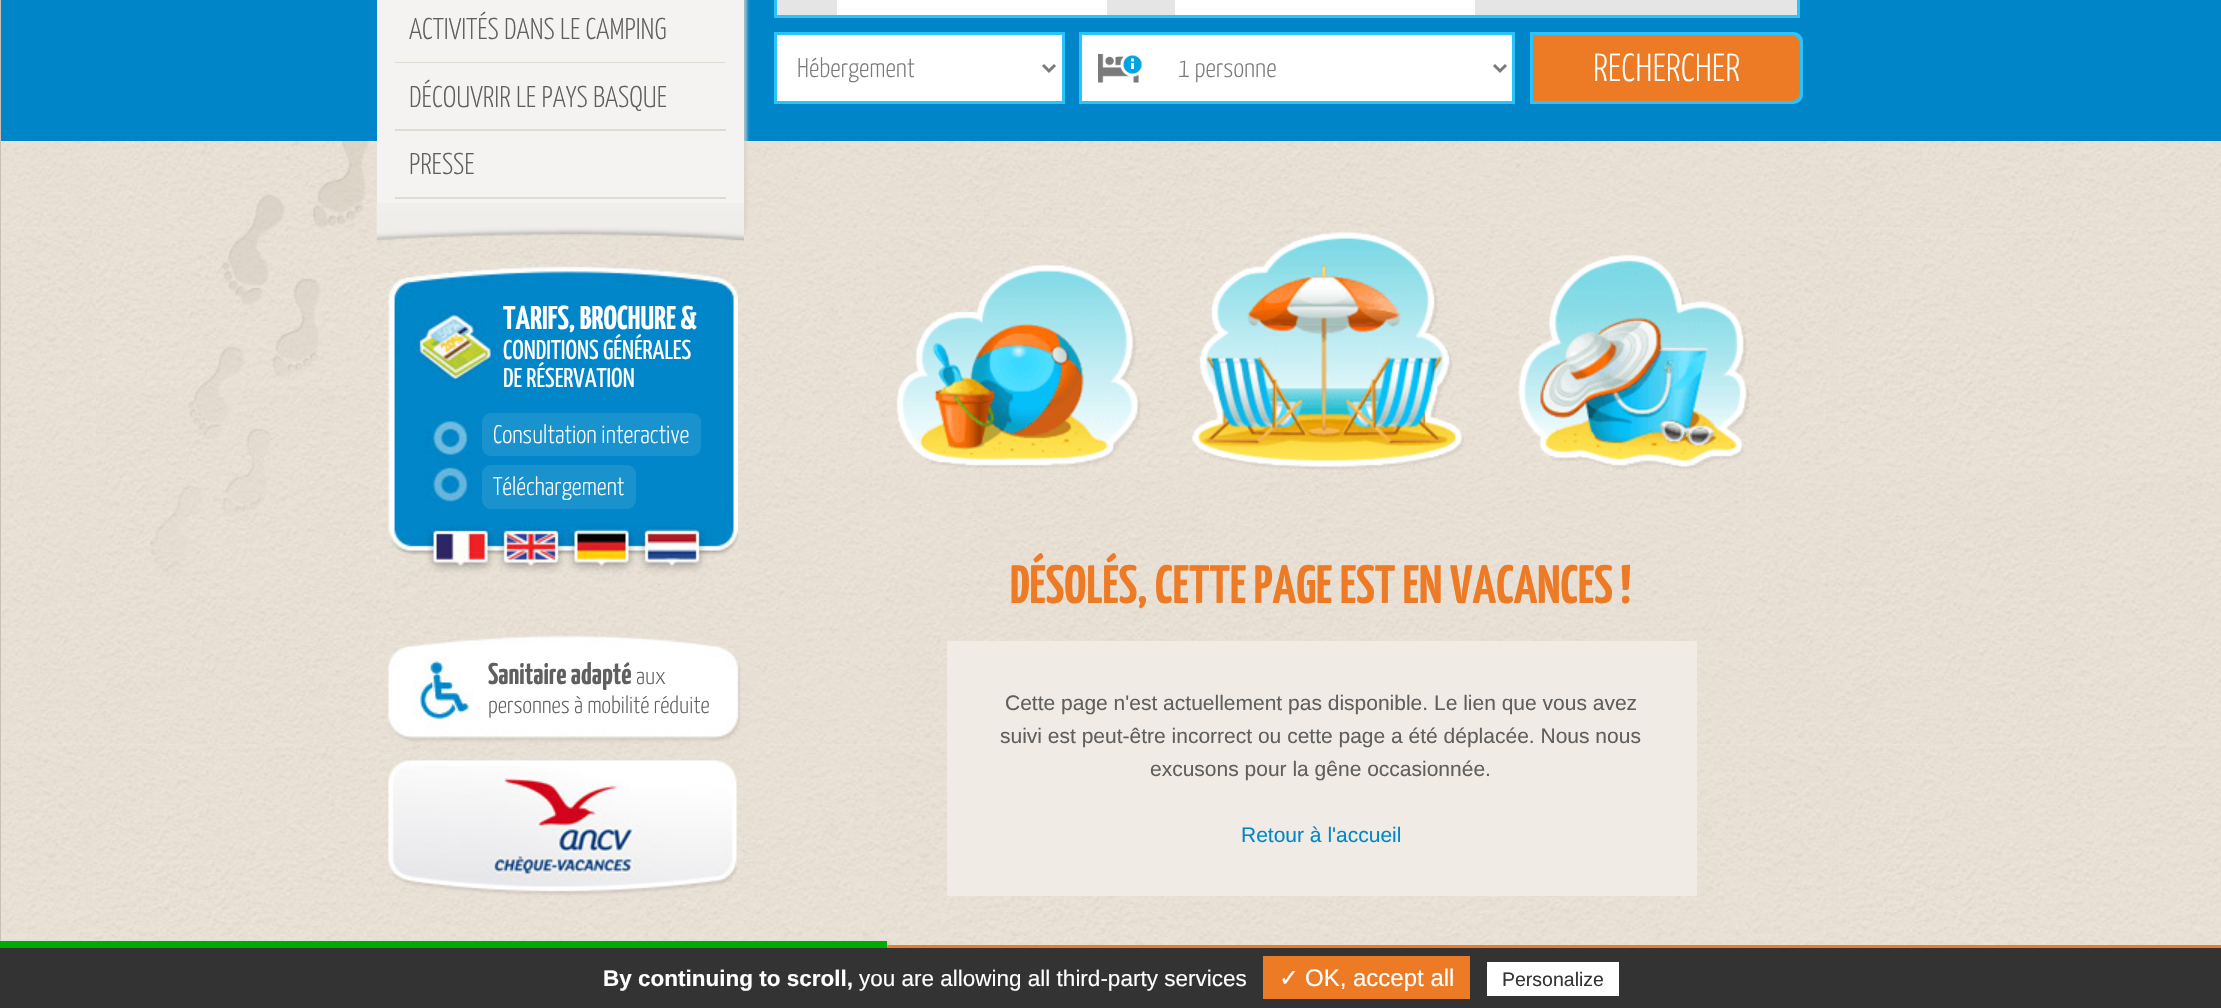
void draw(SkCanvas* canvas) {
    SkPaint paint;
    paint.setAntiAlias(true);
    canvas->clear(0xFFFFFFFF);
    canvas->drawImageRect(SkImages::DeferredFromEncodedData(SkData::MakeFromFileName("img1.png")), SkRect::MakeXYWH(1, 141, 2220, 804), SkSamplingOptions());
    paint.setColor(0xFFC6C0B7);
    canvas->drawRect(SkRect::MakeXYWH(0, 0, 1, 941), paint);
    canvas->drawImageRect(SkImages::DeferredFromEncodedData(SkData::MakeFromFileName("img6.png")), SkRect::MakeXYWH(96, 141, 281, 461), SkSamplingOptions());
    paint.setColor(0xFF0086C8);
    canvas->drawRect(SkRect::MakeXYWH(1, 0, 2220, 141), paint);
    paint.setColor(0xBFD9D2C7);
    paint.setMaskFilter(SkMaskFilter::MakeBlur(kNormal_SkBlurStyle, 1.5f));
    canvas->drawRoundRect(SkRect::MakeXYWH(380, -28, 367, 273), 23, 23, paint);
    paint.setMaskFilter(nullptr);
    paint.setColor(0xFFF4F3F1);
    canvas->drawRect(SkRect::MakeXYWH(377, 0, 367, 203), paint);
    canvas->drawImageRect(SkImages::DeferredFromEncodedData(SkData::MakeFromFileName("img2.png")), SkRect::MakeXYWH(376, 203, 368, 43), SkSamplingOptions());
    paint.setColor(0xFFE0DBD2);
    canvas->drawRect(SkRect::MakeXYWH(395, 62, 331, 1), paint);
    SkFont font1(fontMgr->matchFamilyStyle("Yanone Kaffeesatz", SkFontStyle(300, SkFontStyle::kNormal_Width, SkFontStyle::kUpright_Slant)), 30);
    font1.setSubpixel(true);
    paint.setColor(0xFF5F5F5F);
    canvas->drawString("ACTIVITÉS DANS LE CAMPING", 409, 39, font1, paint);
    paint.setColor(0xFFE0DBD2);
    canvas->drawRect(SkRect::MakeXYWH(395, 129, 331, 2), paint);
    paint.setColor(0xFF5F5F5F);
    canvas->drawString("DÉCOUVRIR LE PAYS BASQUE", 409, 107, font1, paint);
    paint.setColor(0xFFE0DBD2);
    canvas->drawRect(SkRect::MakeXYWH(395, 197, 331, 2), paint);
    paint.setColor(0xFF5F5F5F);
    canvas->drawString("PRESSE", 409, 174, font1, paint);
    canvas->drawImageRect(SkImages::DeferredFromEncodedData(SkData::MakeFromFileName("img3.png")), SkRect::MakeXYWH(376, 261, 362, 320), SkSamplingOptions());
    SkFont font2(fontMgr->matchFamilyStyle("Yanone Kaffeesatz", SkFontStyle::Bold()), 33);
    font2.setSubpixel(true);
    paint.setColor(0xFFFFFFFF);
    canvas->drawString("TARIFS, BROCHURE &", 503, 329, font2, paint);
    SkFont font3(fontMgr->matchFamilyStyle("Yanone Kaffeesatz", SkFontStyle::Normal()), 27);
    font3.setSubpixel(true);
    canvas->drawString("CONDITIONS GÉNÉRALES", 503, 359, font3, paint);
    canvas->drawString("DE RÉSERVATION", 503, 387, font3, paint);
    paint.setColor(0xFF1A92CE);
    canvas->drawRoundRect(SkRect::MakeXYWH(482, 413, 219, 43), 9, 9, paint);
    SkFont font4(fontMgr->matchFamilyStyle("Yanone Kaffeesatz", SkFontStyle(300, SkFontStyle::kNormal_Width, SkFontStyle::kUpright_Slant)), 25.5f);
    font4.setSubpixel(true);
    paint.setColor(0xFFFFFFFF);
    canvas->drawString("Consultation interactive", 493, 443, font4, paint);
    paint.setColor(0xFF1A92CE);
    canvas->drawRoundRect(SkRect::MakeXYWH(482, 465, 154, 44), 9, 9, paint);
    paint.setColor(0xFFFFFFFF);
    canvas->drawString("Téléchargement", 493, 495, font4, paint);
    canvas->drawImageRect(SkImages::DeferredFromEncodedData(SkData::MakeFromFileName("img4.png")), SkRect::MakeXYWH(376, 633, 370, 113), SkSamplingOptions());
    SkFont font5(fontMgr->matchFamilyStyle("Yanone Kaffeesatz", SkFontStyle::Bold()), 30);
    font5.setSubpixel(true);
    paint.setColor(0xFF5F5F5F);
    canvas->drawString("Sanitaire adapté", 488, 684, font5, paint);
    SkFont font6(fontMgr->matchFamilyStyle("Yanone Kaffeesatz", SkFontStyle(300, SkFontStyle::kNormal_Width, SkFontStyle::kUpright_Slant)), 24);
    font6.setSubpixel(true);
    canvas->drawString("aux", 636, 684, font6, paint);
    canvas->drawString("personnes à mobilité réduite", 488, 713, font6, paint);
    canvas->drawImageRect(SkImages::DeferredFromEncodedData(SkData::MakeFromFileName("img5.png")), SkRect::MakeXYWH(388, 760, 349, 136), SkSamplingOptions());
    canvas->drawImageRect(SkImages::DeferredFromEncodedData(SkData::MakeFromFileName("img7.png")), SkRect::MakeXYWH(896, 232, 855, 239), SkSamplingOptions());
    SkFont font7(fontMgr->matchFamilyStyle("Yanone Kaffeesatz", SkFontStyle::Bold()), 54);
    font7.setSubpixel(true);
    paint.setColor(0xFFED7B25);
    canvas->drawString("DÉSOLÉS, CETTE PAGE EST EN VACANCES !", 1010, 603, font7, paint);
    paint.setColor(0xFFF0ECE5);
    canvas->drawRect(SkRect::MakeXYWH(947, 641, 750, 255), paint);
    SkFont font8(fontMgr->matchFamilyStyle("Liberation Sans", SkFontStyle::Normal()), 21);
    font8.setSubpixel(true);
    paint.setColor(0xFF5F5F5F);
    canvas->drawString("Cette page n'est actuellement pas disponible. Le lien que vous avez", 1005, 710, font8, paint);
    canvas->drawString("suivi est peut-être incorrect ou cette page a été déplacée. Nous nous", 1000, 743, font8, paint);
    canvas->drawString("excusons pour la gêne occasionnée.", 1150, 776, font8, paint);
    paint.setColor(0xFF0087C8);
    canvas->drawString("Retour à l'accueil", 1241, 842, font8, paint);
    paint.setColor(0xFFE5E5E5);
    canvas->drawRect(SkRect::MakeXYWH(775.5f, -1.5f, 1023, 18), paint);
    paint.setStyle(SkPaint::kStroke_Style);
    paint.setStrokeWidth(3);
    paint.setColor(0xFF2BC3FC);
    canvas->drawRect(SkRect::MakeXYWH(775.5f, -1.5f, 1023, 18), paint);
    paint.setStyle(SkPaint::kFill_Style);
    paint.setColor(0xFFFFFFFF);
    canvas->drawRect(SkRect::MakeXYWH(837, 0, 270, 15), paint);
    canvas->drawRect(SkRect::MakeXYWH(1175, 0, 300, 15), paint);
    canvas->drawRect(SkRect::MakeXYWH(775.5f, 33.5f, 288, 69), paint);
    paint.setStyle(SkPaint::kStroke_Style);
    paint.setColor(0xFF2BC3FC);
    canvas->drawRect(SkRect::MakeXYWH(775.5f, 33.5f, 288, 69), paint);
    paint.setColor(0xFF7A7A7A);
    canvas->drawPath(SkPathBuilder().moveTo(1043, 65).lineTo(1049, 71).lineTo(1055, 65).detach(), paint);
    SkFont font9(fontMgr->matchFamilyStyle("Yanone Kaffeesatz", SkFontStyle(300, SkFontStyle::kNormal_Width, SkFontStyle::kUpright_Slant)), 27);
    font9.setSubpixel(true);
    paint.setStyle(SkPaint::kFill_Style);
    canvas->drawString("Hébergement", 797, 77, font9, paint);
    paint.setColor(0xFFFFFFFF);
    canvas->drawRect(SkRect::MakeXYWH(1082, 35, 430, 66), paint);
    canvas->drawImageRect(SkImages::DeferredFromEncodedData(SkData::MakeFromFileName("img8.png")), SkRect::MakeXYWH(1098, 54, 44, 29), SkSamplingOptions());
    paint.setStyle(SkPaint::kStroke_Style);
    paint.setColor(0xFF2BC3FC);
    canvas->drawRect(SkRect::MakeXYWH(1080.5f, 33.5f, 433, 69), paint);
    paint.setColor(0xFF7A7A7A);
    canvas->drawPath(SkPathBuilder().moveTo(1494, 65).lineTo(1500, 71).lineTo(1506, 65).detach(), paint);
    paint.setStyle(SkPaint::kFill_Style);
    canvas->drawString("1 personne", 1178, 77, font9, paint);
    paint.setColor(0xFF2BC3FC);
    canvas->drawPath(SkPathBuilder().moveTo(1531.5f, 33.5f).lineTo(1794, 33.5f).cubicTo(1798, 33.5f, 1801.5f, 37, 1801.5f, 41).lineTo(1801.5f, 95).cubicTo(1801.5f, 99, 1798, 102.5f, 1794, 102.5f).lineTo(1531.5f, 102.5f).close().detach(), paint);
    paint.setStyle(SkPaint::kStroke_Style);
    canvas->drawPath(SkPathBuilder().moveTo(1531.5f, 33.5f).lineTo(1794, 33.5f).cubicTo(1798, 33.5f, 1801.5f, 37, 1801.5f, 41).lineTo(1801.5f, 95).cubicTo(1801.5f, 99, 1798, 102.5f, 1794, 102.5f).lineTo(1531.5f, 102.5f).close().detach(), paint);
    paint.setStyle(SkPaint::kFill_Style);
    paint.setColor(0xFFED7B25);
    canvas->drawPath(SkPathBuilder().moveTo(1533, 35).lineTo(1791, 35).cubicTo(1796, 35, 1800, 39, 1800, 44).lineTo(1800, 92).cubicTo(1800, 97, 1796, 101, 1791, 101).lineTo(1533, 101).close().detach(), paint);
    SkFont font10(fontMgr->matchFamilyStyle("Yanone Kaffeesatz", SkFontStyle(300, SkFontStyle::kNormal_Width, SkFontStyle::kUpright_Slant)), 39);
    font10.setSubpixel(true);
    paint.setColor(0xFFFFFFFF);
    canvas->drawString("RECHERCHER", 1593, 81, font10, paint);
    paint.setColor(0xFFED7B25);
    canvas->drawRect(SkRect::MakeXYWH(887, 945, 1334, 3), paint);
    paint.setColor(0xFF555555);
    paint.setMaskFilter(SkMaskFilter::MakeBlur(kNormal_SkBlurStyle, 1.5f));
    canvas->drawRect(SkRect::MakeXYWH(0, 942, 887, 8), paint);
    paint.setMaskFilter(nullptr);
    paint.setColor(0xFFFFFFFF);
    paint.setMaskFilter(SkMaskFilter::MakeBlur(kNormal_SkBlurStyle, 1.5f));
    canvas->drawRect(SkRect::MakeXYWH(0, 941, 887, 7), paint);
    paint.setMaskFilter(nullptr);
    paint.setColor(0xFF00AA00);
    canvas->drawRect(SkRect::MakeXYWH(0, 941, 887, 7), paint);
    paint.setColor(0xFF333333);
    canvas->drawRect(SkRect::MakeXYWH(0, 948, 2221, 60), paint);
    SkFont font11(fontMgr->matchFamilyStyle("Liberation Sans", SkFontStyle::Bold()), 22.5f);
    font11.setSubpixel(true);
    paint.setColor(0xFFFFFFFF);
    canvas->drawString("By continuing to scroll,", 603, 986, font11, paint);
    SkFont font12(fontMgr->matchFamilyStyle("Liberation Sans", SkFontStyle::Normal()), 22.5f);
    font12.setSubpixel(true);
    canvas->drawString("you are allowing all third-party services", 859, 986, font12, paint);
    paint.setColor(0xFFED7B25);
    canvas->drawRect(SkRect::MakeXYWH(1263, 956, 207, 43), paint);
    SkFont font13(fontMgr->matchFamilyStyle("DejaVu Sans", SkFontStyle::Normal()), 24);
    font13.setSubpixel(true);
    paint.setColor(0xFFFFFFFF);
    canvas->drawString("✓", 1279, 986, font13, paint);
    SkFont font14(fontMgr->matchFamilyStyle("Liberation Sans", SkFontStyle::Normal()), 24);
    font14.setSubpixel(true);
    canvas->drawString("OK, accept all", 1305, 986, font14, paint);
    canvas->drawRect(SkRect::MakeXYWH(1487, 962, 132, 34), paint);
    SkFont font15(fontMgr->matchFamilyStyle("Liberation Sans", SkFontStyle::Normal()), 19.5f);
    font15.setSubpixel(true);
    paint.setColor(0xFF333333);
    canvas->drawString("Personalize", 1502, 986, font15, paint);
}
